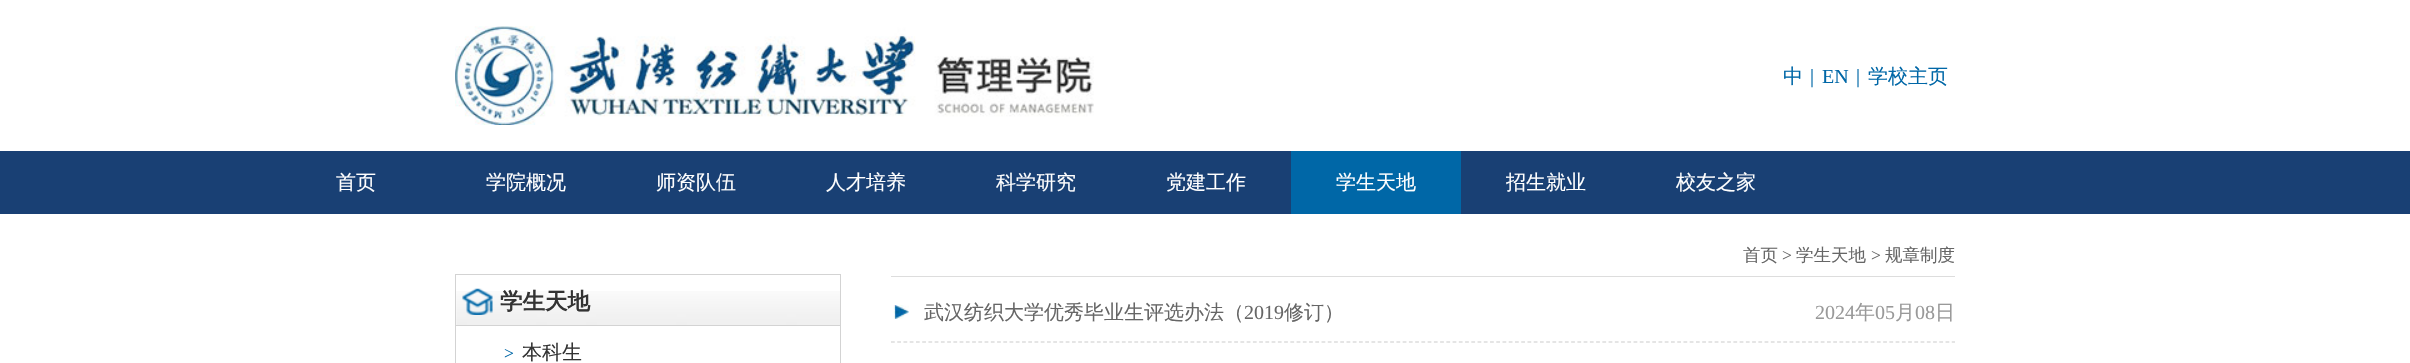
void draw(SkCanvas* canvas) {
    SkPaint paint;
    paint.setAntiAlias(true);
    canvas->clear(0xFFFFFFFF);
    canvas->drawImageRect(SkImages::DeferredFromEncodedData(SkData::MakeFromFileName("img1.png")), SkRect::MakeXYWH(455, 26, 639, 99), SkSamplingOptions());
    SkFont font1(fontMgr->matchFamilyStyle("WenQuanYi Zen Hei", SkFontStyle(500, SkFontStyle::kNormal_Width, SkFontStyle::kUpright_Slant)), 20);
    font1.setSubpixel(true);
    paint.setColor(0xFF0067A7);
    canvas->drawString("中", 1783, 83, font1, paint);
    SkFont font2(fontMgr->matchFamilyStyle("Liberation Serif", SkFontStyle::Normal()), 20);
    font2.setSubpixel(true);
    canvas->drawString("|", 1810, 83, font2, paint);
    canvas->drawString("EN", 1822, 83, font2, paint);
    canvas->drawString("|", 1856, 83, font2, paint);
    canvas->drawString("学校主页", 1868, 83, font1, paint);
    paint.setColor(0xFF194074);
    canvas->drawRect(SkRect::MakeXYWH(0, 151, 2410, 63), paint);
    paint.setColor(0xFFFFFFFF);
    canvas->drawString("首页", 336, 189, font1, paint);
    canvas->drawString("学院概况", 486, 189, font1, paint);
    canvas->drawString("师资队伍", 656, 189, font1, paint);
    canvas->drawString("人才培养", 826, 189, font1, paint);
    canvas->drawString("科学研究", 996, 189, font1, paint);
    canvas->drawString("党建工作", 1166, 189, font1, paint);
    paint.setColor(0xFF0067A7);
    canvas->drawRect(SkRect::MakeXYWH(1291, 151, 170, 63), paint);
    paint.setColor(0xFFFFFFFF);
    canvas->drawString("学生天地", 1336, 189, font1, paint);
    canvas->drawString("招生就业", 1506, 189, font1, paint);
    canvas->drawString("校友之家", 1676, 189, font1, paint);
    canvas->drawImageRect(SkImages::DeferredFromEncodedData(SkData::MakeFromFileName("img2.png")), SkRect::MakeXYWH(456, 291, 384, 34), SkSamplingOptions());
    paint.setStyle(SkPaint::kStroke_Style);
    paint.setStrokeWidth(1);
    paint.setColor(0xFFD3D3D3);
    canvas->drawRect(SkRect::MakeXYWH(455.5f, 274.5f, 385, 51), paint);
    canvas->drawImageRect(SkImages::DeferredFromEncodedData(SkData::MakeFromFileName("img3.png")), SkRect::MakeXYWH(462, 288, 31, 27), SkSamplingOptions());
    SkFont font3(fontMgr->matchFamilyStyle("WenQuanYi Zen Hei", SkFontStyle::Bold()), 22.5f);
    font3.setSubpixel(true);
    paint.setStyle(SkPaint::kFill_Style);
    paint.setColor(0xFF333333);
    canvas->drawString("学生天地", 500, 309, font3, paint);
    paint.setColor(0xFFD3D3D3);
    canvas->drawRect(SkRect::MakeXYWH(840, 326, 1, 37), paint);
    canvas->drawRect(SkRect::MakeXYWH(455, 326, 1, 37), paint);
    SkFont font4(fontMgr->matchFamilyStyle("Liberation Serif", SkFontStyle::Normal()), 17.5f);
    font4.setSubpixel(true);
    paint.setColor(0xFF0067A7);
    canvas->drawString(">", 504, 359, font4, paint);
    paint.setColor(0xFF333333);
    canvas->drawString("本科生", 522, 359, font1, paint);
    paint.setColor(0xFFDDDDDD);
    canvas->drawRect(SkRect::MakeXYWH(891, 276, 1064, 1), paint);
    SkFont font5(fontMgr->matchFamilyStyle("WenQuanYi Zen Hei", SkFontStyle(500, SkFontStyle::kNormal_Width, SkFontStyle::kUpright_Slant)), 17.5f);
    font5.setSubpixel(true);
    paint.setColor(0xFF666666);
    canvas->drawString("首页", 1743, 261, font5, paint);
    canvas->drawString(">", 1782, 261, font4, paint);
    canvas->drawString("学生天地", 1796, 261, font5, paint);
    canvas->drawString(">", 1871, 261, font4, paint);
    canvas->drawString("规章制度", 1885, 261, font5, paint);
    paint.setStyle(SkPaint::kStroke_Style);
    paint.setStrokeWidth(1.2f);
    paint.setColor(0xFFCCCCCC);
    paint.setPathEffect(SkDashPathEffect::Make({{3.75f, 2.49f}}, 0));
    canvas->drawPath(SkPathBuilder().moveTo(891, 342).lineTo(1955, 342).detach(), paint);
    paint.setPathEffect(nullptr);
    canvas->drawImageRect(SkImages::DeferredFromEncodedData(SkData::MakeFromFileName("img4.png")), SkRect::MakeXYWH(893, 305, 16, 14), SkSamplingOptions());
    paint.setStyle(SkPaint::kFill_Style);
    paint.setColor(0xFF666666);
    canvas->drawString("武汉纺织大学优秀毕业生评选办法（", 924, 319, font1, paint);
    canvas->drawString("2019", 1244, 319, font2, paint);
    canvas->drawString("修订）", 1284, 319, font1, paint);
    paint.setColor(0xFF999999);
    canvas->drawString("2024", 1815, 319, font2, paint);
    canvas->drawString("年", 1855, 319, font1, paint);
    canvas->drawString("05", 1875, 319, font2, paint);
    canvas->drawString("月", 1895, 319, font1, paint);
    canvas->drawString("08", 1915, 319, font2, paint);
    canvas->drawString("日", 1935, 319, font1, paint);
}
